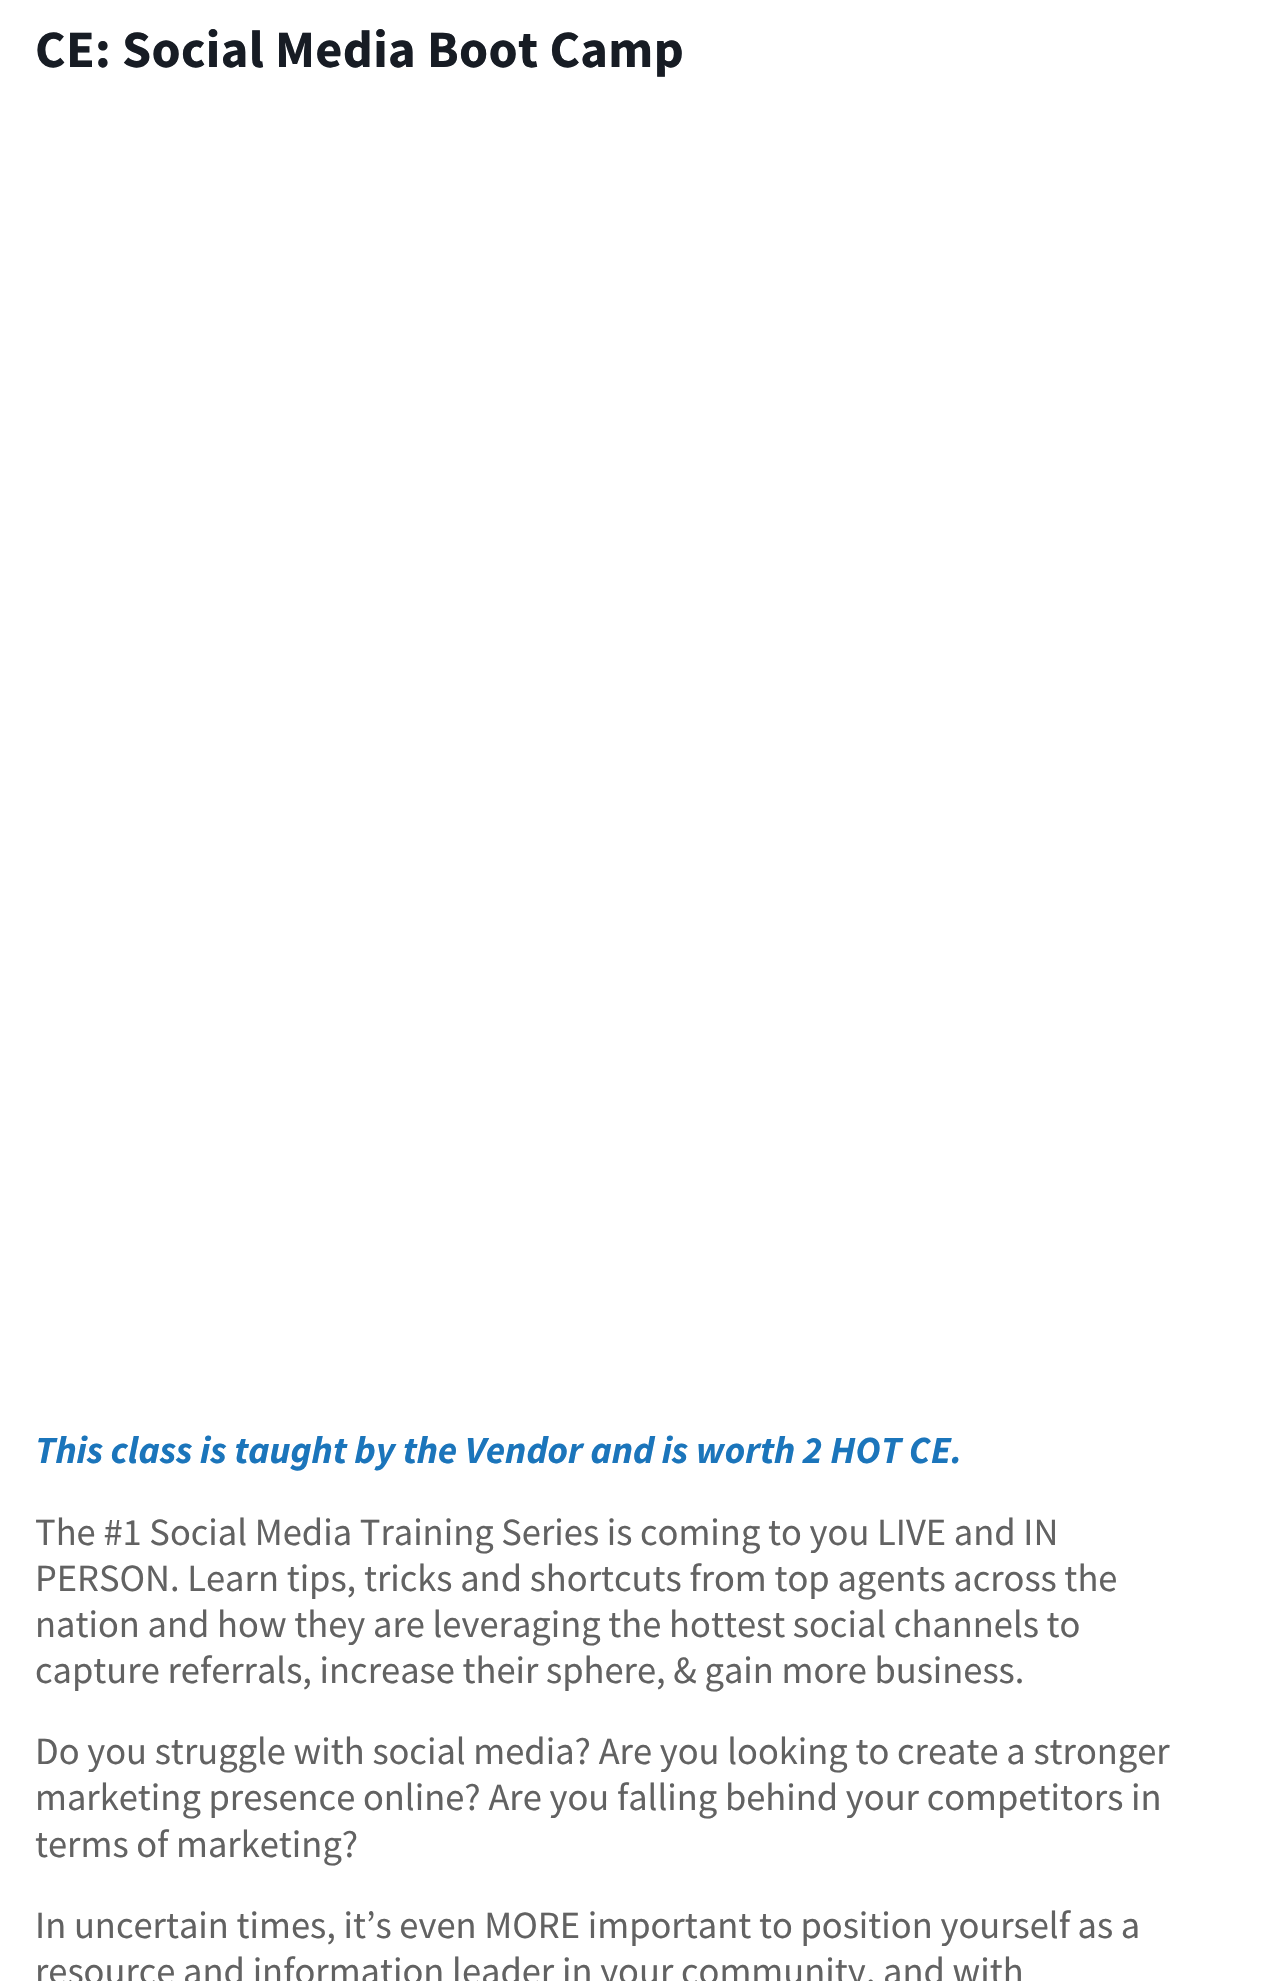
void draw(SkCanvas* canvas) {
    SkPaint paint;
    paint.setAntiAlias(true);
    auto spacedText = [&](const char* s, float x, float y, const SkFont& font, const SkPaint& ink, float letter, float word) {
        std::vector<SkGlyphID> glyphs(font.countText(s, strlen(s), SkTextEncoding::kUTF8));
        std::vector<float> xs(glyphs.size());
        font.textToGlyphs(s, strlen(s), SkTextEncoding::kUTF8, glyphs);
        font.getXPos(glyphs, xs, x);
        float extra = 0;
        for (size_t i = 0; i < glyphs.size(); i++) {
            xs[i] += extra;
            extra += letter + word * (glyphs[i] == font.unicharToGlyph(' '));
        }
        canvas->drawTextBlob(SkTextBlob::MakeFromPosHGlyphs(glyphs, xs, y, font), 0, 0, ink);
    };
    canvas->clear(0xFFFFFFFF);
    SkFont font1(fontMgr->matchFamilyStyle("Source Sans Pro", SkFontStyle::Bold()), 52.5f);
    font1.setSubpixel(true);
    paint.setColor(0xFF171C24);
    spacedText("CE: Social Media Boot Camp", 35, 67, font1, paint, 0.35f, 0);
    SkFont font2(fontMgr->matchFamilyStyle("Source Sans Pro", SkFontStyle::BoldItalic()), 38.5f);
    font2.setSubpixel(true);
    paint.setColor(0xFF1B75BB);
    canvas->drawString("This class is taught by the Vendor and is worth 2 HOT CE.", 35, 1463, font2, paint);
    SkFont font3(fontMgr->matchFamilyStyle("Source Sans Pro", SkFontStyle::Normal()), 38.5f);
    font3.setSubpixel(true);
    paint.setColor(0xFF626262);
    canvas->drawString("The #1 Social Media Training Series is coming to you LIVE and IN", 35, 1545, font3, paint);
    canvas->drawString("PERSON. Learn tips, tricks and shortcuts from top agents across the", 35, 1591, font3, paint);
    canvas->drawString("nation and how they are leveraging the hottest social channels to", 35, 1637, font3, paint);
    canvas->drawString("capture referrals, increase their sphere, & gain more business.", 35, 1683, font3, paint);
    canvas->drawString("Do you struggle with social media? Are you looking to create a stronger", 35, 1764, font3, paint);
    canvas->drawString("marketing presence online? Are you falling behind your competitors in", 35, 1810, font3, paint);
    canvas->drawString("terms of marketing?", 35, 1857, font3, paint);
    canvas->drawString("In uncertain times, it’s even MORE important to position yourself as a", 35, 1938, font3, paint);
    canvas->drawString("resource and information leader in your community, and with", 35, 1984, font3, paint);
}
